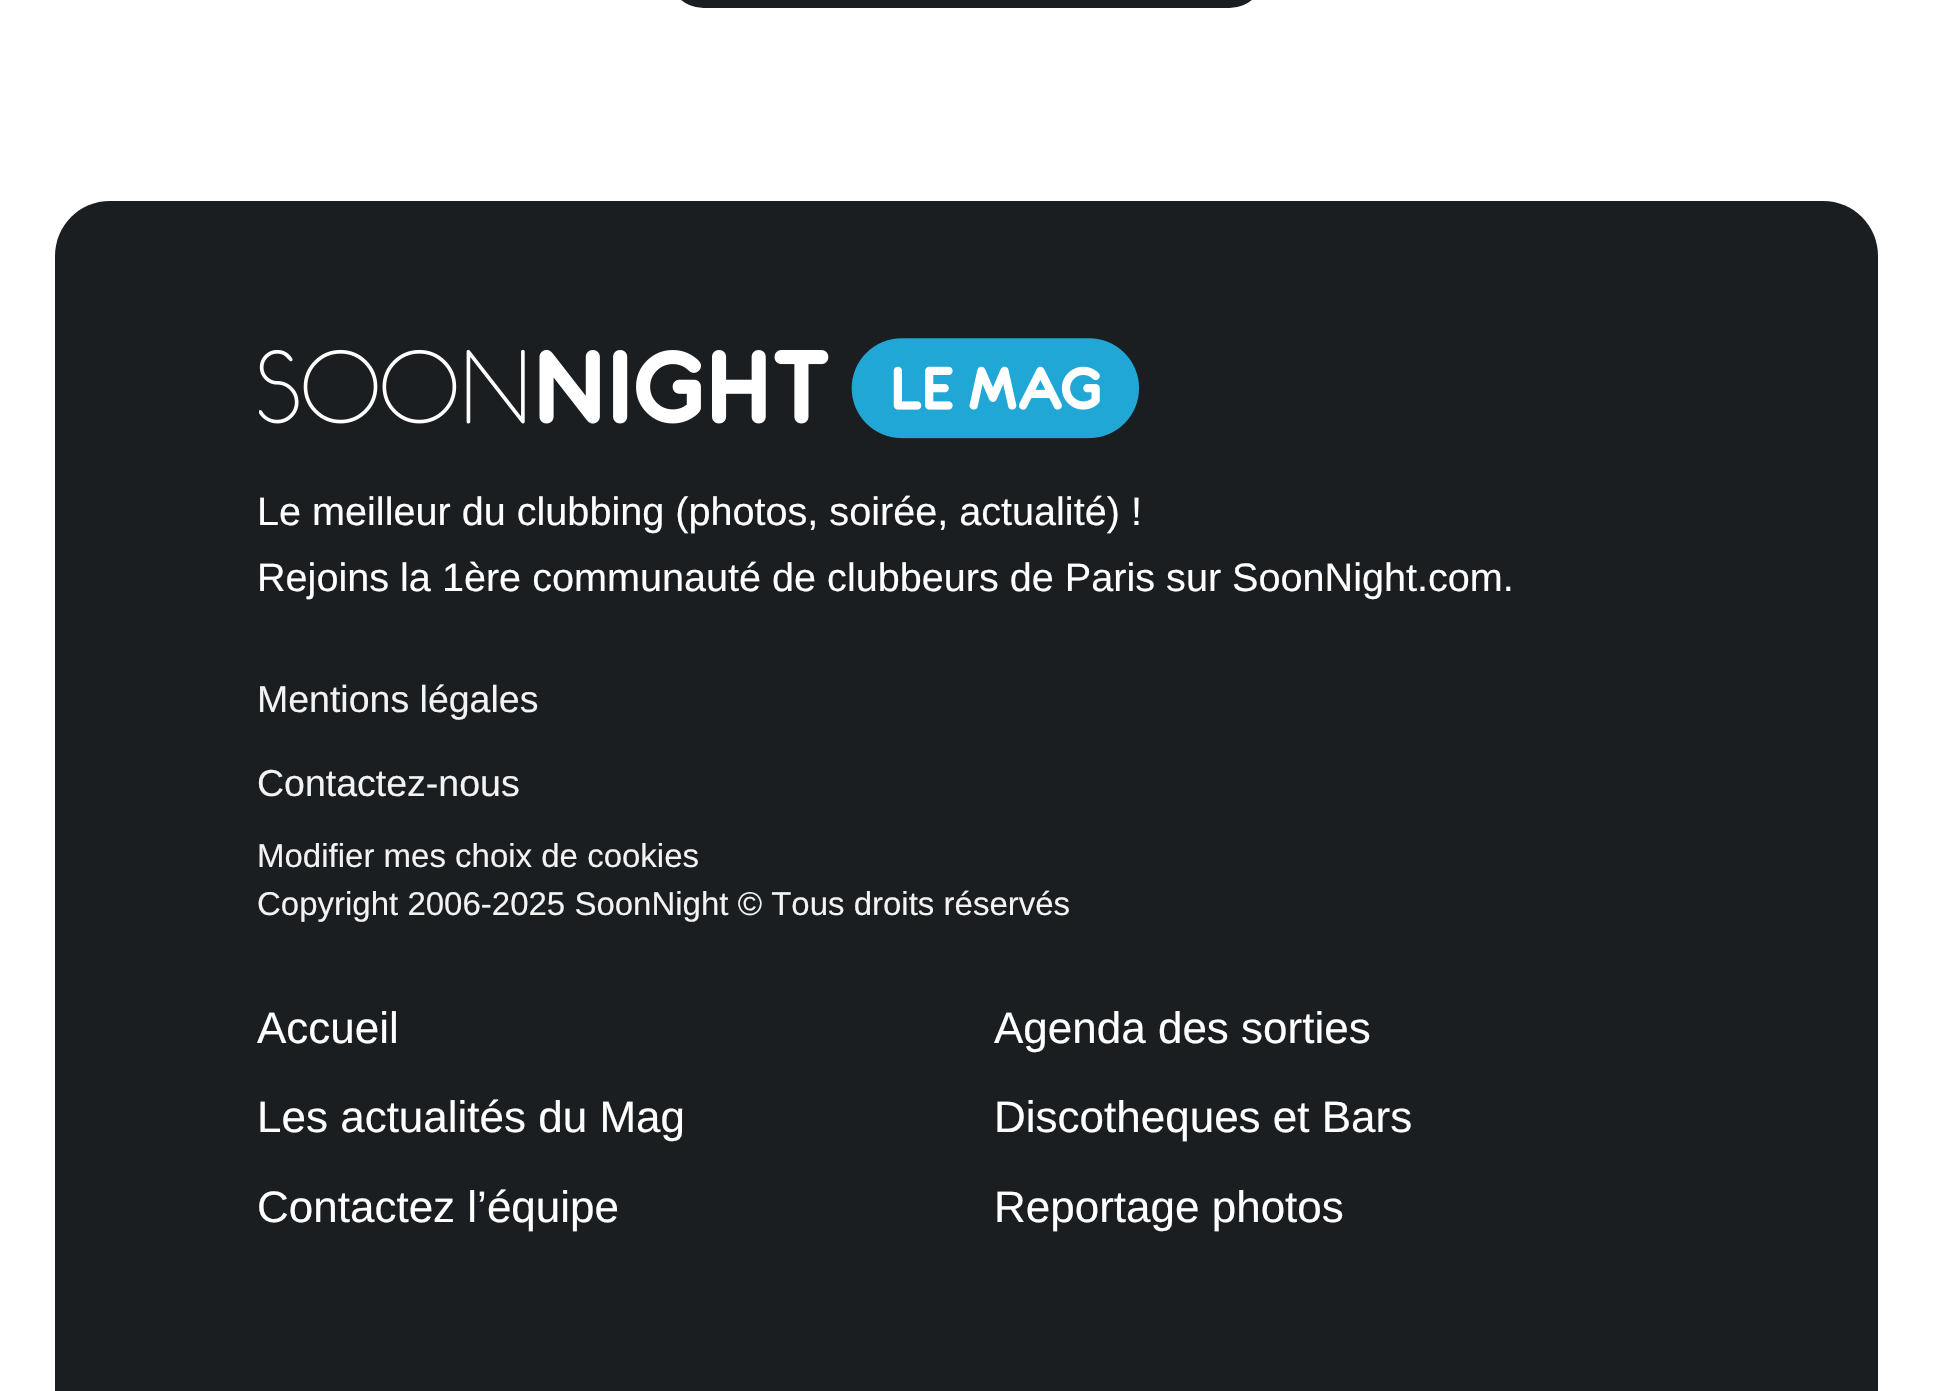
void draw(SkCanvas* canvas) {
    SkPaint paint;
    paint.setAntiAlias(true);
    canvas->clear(0xFFFFFFFF);
    paint.setColor(0xFF1A1E21);
    canvas->drawRoundRect(SkRect::MakeXYWH(668, -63, 597, 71), 63, 63, paint);
    canvas->drawPath(SkPathBuilder().moveTo(110, 201).lineTo(1823, 201).cubicTo(1853.5f, 201, 1878, 225.5f, 1878, 256).lineTo(1878, 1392).lineTo(55, 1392).lineTo(55, 256).cubicTo(55, 225.5f, 79.5f, 201, 110, 201).close().detach(), paint);
    canvas->drawImageRect(SkImages::DeferredFromEncodedData(SkData::MakeFromFileName("img1.png")), SkRect::MakeXYWH(259, 338, 881, 101), SkSamplingOptions());
    SkFont font1(fontMgr->matchFamilyStyle("Liberation Sans", SkFontStyle::Normal()), 39.6f);
    font1.setSubpixel(true);
    paint.setColor(0xFFFFFFFF);
    canvas->drawString("Le meilleur du clubbing (photos, soirée, actualité) !", 257, 525, font1, paint);
    canvas->drawString("Rejoins la 1ère communauté de clubbeurs de Paris sur SoonNight.com.", 257, 591, font1, paint);
    SkFont font2(fontMgr->matchFamilyStyle("Liberation Sans", SkFontStyle::Normal()), 37.5f);
    font2.setSubpixel(true);
    paint.setColor(0xFFF3F3F3);
    canvas->drawString("Mentions légales", 257, 712, font2, paint);
    canvas->drawString("Contactez-nous", 257, 796, font2, paint);
    SkFont font3(fontMgr->matchFamilyStyle("Liberation Sans", SkFontStyle::Normal()), 33);
    font3.setSubpixel(true);
    canvas->drawString("Modifier mes choix de cookies", 257, 867, font3, paint);
    canvas->drawString("Copyright 2006-2025 SoonNight © Tous droits réservés", 257, 915, font3, paint);
    SkFont font4(fontMgr->matchFamilyStyle("Liberation Sans", SkFontStyle::Normal()), 44);
    font4.setSubpixel(true);
    paint.setColor(0xFFFFFFFF);
    canvas->drawString("Accueil", 257, 1043, font4, paint);
    canvas->drawString("Les actualités du Mag", 257, 1132, font4, paint);
    canvas->drawString("Contactez l’équipe", 257, 1222, font4, paint);
    canvas->drawString("Agenda des sorties", 994, 1043, font4, paint);
    canvas->drawString("Discotheques et Bars", 994, 1132, font4, paint);
    canvas->drawString("Reportage photos", 994, 1222, font4, paint);
}
